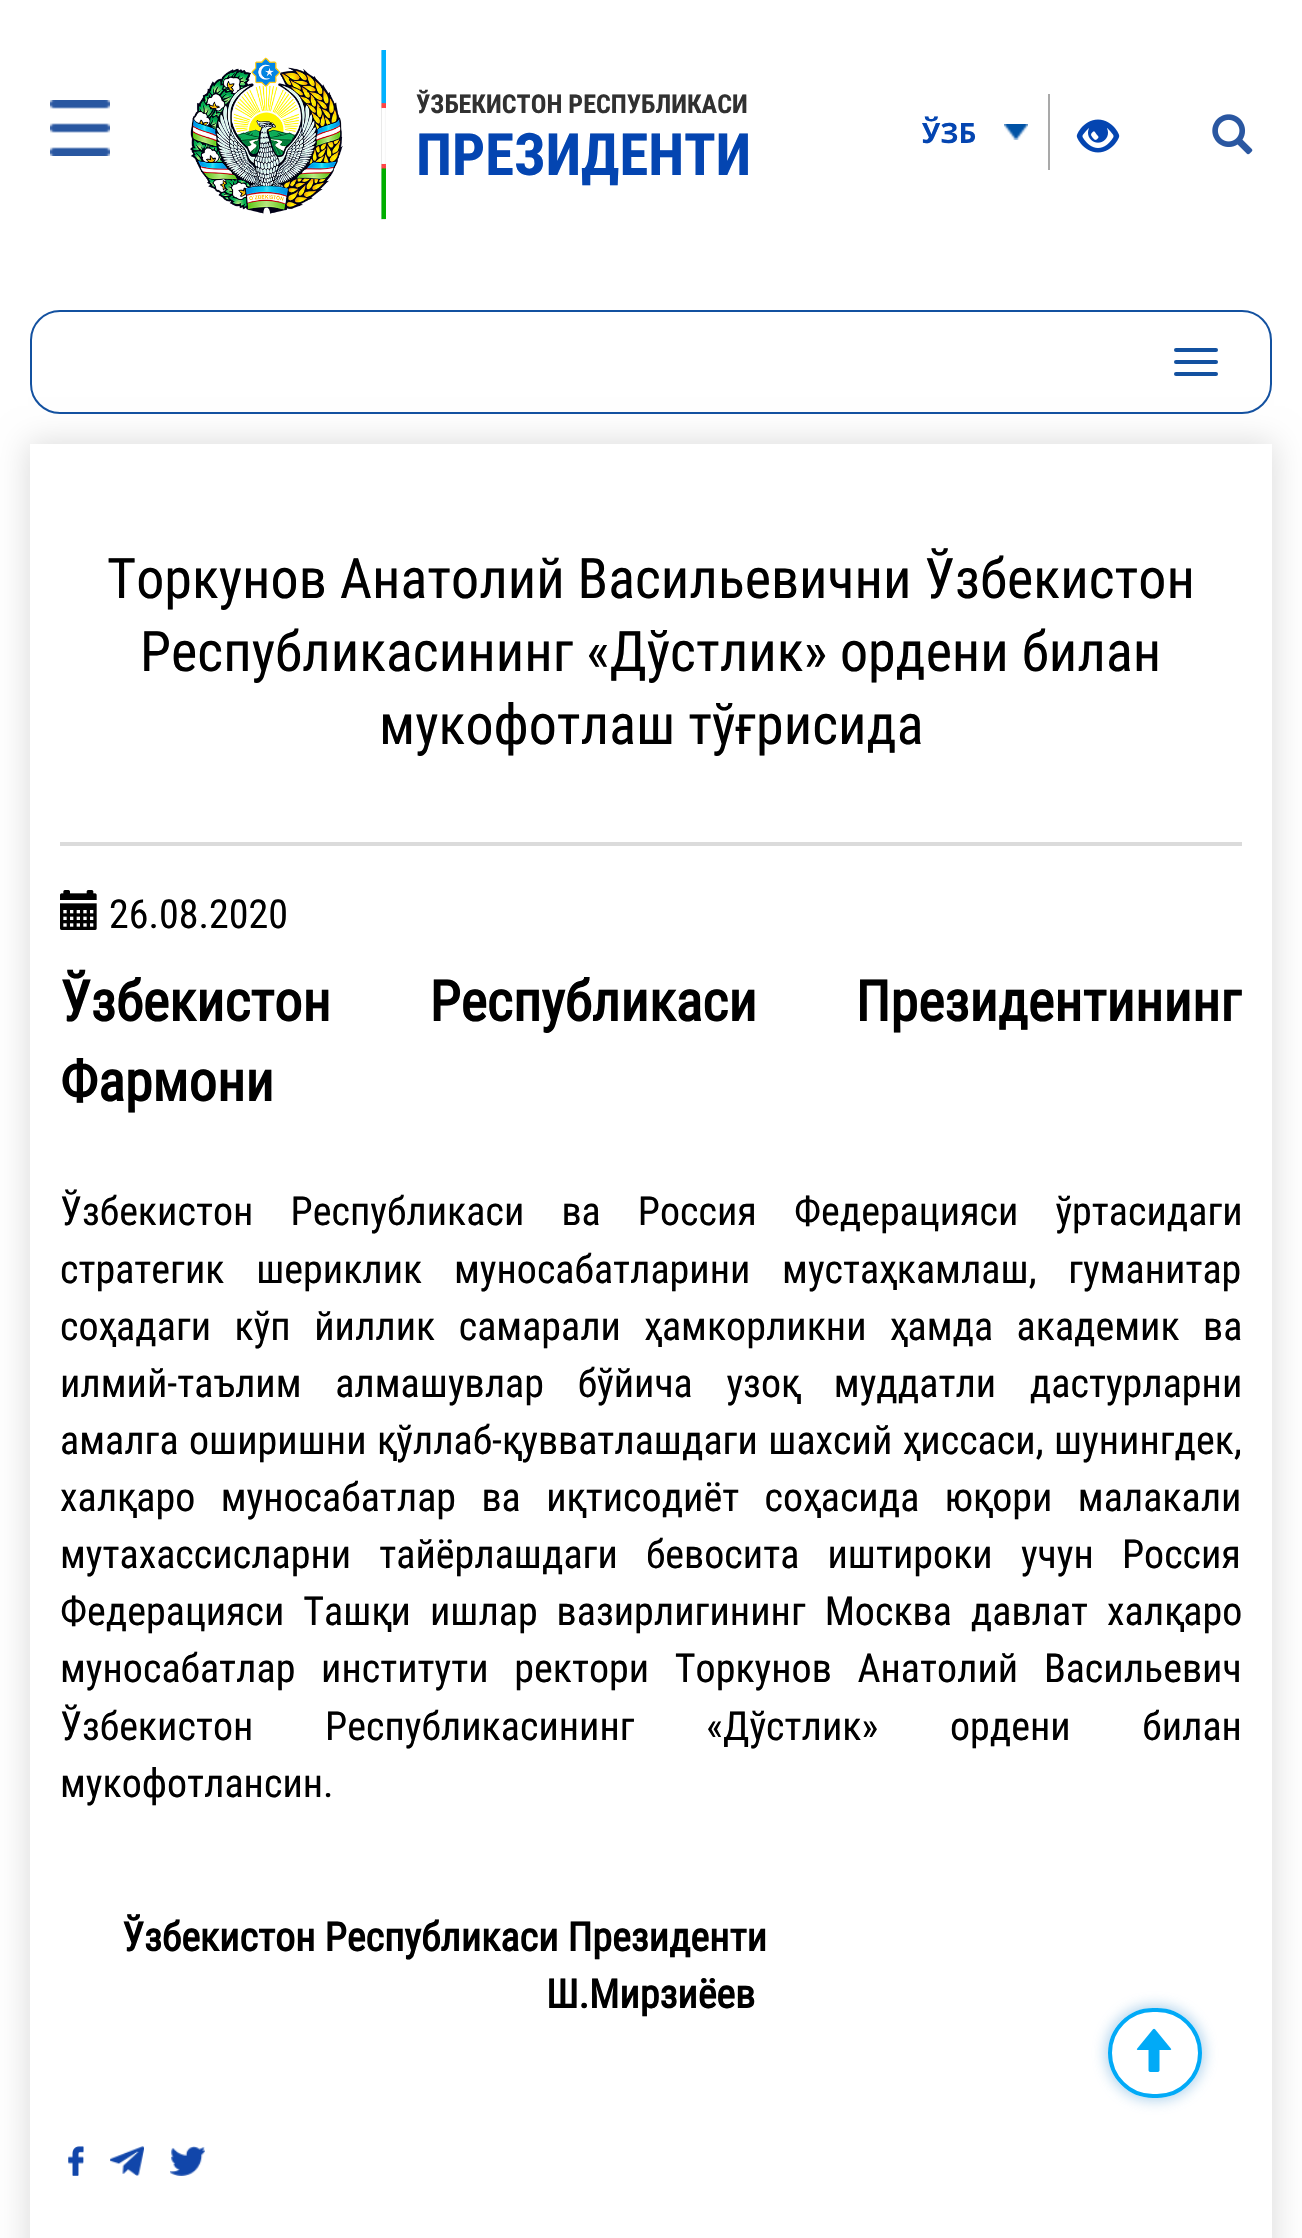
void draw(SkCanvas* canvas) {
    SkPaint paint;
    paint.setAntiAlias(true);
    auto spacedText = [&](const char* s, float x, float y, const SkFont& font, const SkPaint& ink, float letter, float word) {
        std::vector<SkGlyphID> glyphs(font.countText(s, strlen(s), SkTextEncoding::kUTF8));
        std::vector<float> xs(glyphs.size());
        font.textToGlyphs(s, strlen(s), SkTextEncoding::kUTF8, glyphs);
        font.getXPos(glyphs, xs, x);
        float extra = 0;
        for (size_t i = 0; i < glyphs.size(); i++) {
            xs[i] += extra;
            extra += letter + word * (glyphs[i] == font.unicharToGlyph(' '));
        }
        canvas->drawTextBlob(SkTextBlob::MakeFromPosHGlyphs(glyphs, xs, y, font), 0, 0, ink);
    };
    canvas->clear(0xFFFFFFFF);
    canvas->drawImageRect(SkImages::DeferredFromEncodedData(SkData::MakeFromFileName("img1.png")), SkRect::MakeXYWH(50, 100, 60, 56), SkSamplingOptions());
    canvas->drawImageRect(SkImages::DeferredFromEncodedData(SkData::MakeFromFileName("img2.png")), SkRect::MakeXYWH(190, 50, 196, 170), SkSamplingOptions());
    SkFont font1(fontMgr->matchFamilyStyle("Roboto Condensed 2", SkFontStyle::Bold()), 26);
    font1.setSubpixel(true);
    paint.setColor(0xFF313131);
    canvas->drawString("ЎЗБЕКИСТОН РЕСПУБЛИКАСИ", 416, 113, font1, paint);
    SkFont font2(fontMgr->matchFamilyStyle("Roboto Condensed 2", SkFontStyle::Bold()), 58.5f);
    font2.setSubpixel(true);
    paint.setColor(0xFF0445B1);
    canvas->drawString("ПРЕЗИДЕНТИ", 416, 175, font2, paint);
    SkFont font3(fontMgr->matchFamilyStyle("Open Sans", SkFontStyle::Bold()), 28);
    font3.setSubpixel(true);
    canvas->drawString("ЎЗБ", 922, 143, font3, paint);
    canvas->drawImageRect(SkImages::DeferredFromEncodedData(SkData::MakeFromFileName("img3.png")), SkRect::MakeXYWH(1004, 124, 24, 16), SkSamplingOptions());
    paint.setColor(0xFFA9A9A9);
    canvas->drawRect(SkRect::MakeXYWH(1048, 94, 2, 76), paint);
    canvas->drawImageRect(SkImages::DeferredFromEncodedData(SkData::MakeFromFileName("img4.png")), SkRect::MakeXYWH(1076, 119, 44, 34), SkSamplingOptions());
    canvas->save();
    canvas->clipPath(SkPathBuilder(SkPathFillType::kEvenOdd).moveTo(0, 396).lineTo(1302, 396).lineTo(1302, 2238).lineTo(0, 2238).close().moveTo(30, 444).lineTo(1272, 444).lineTo(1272, 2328).lineTo(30, 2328).close().detach(), true);
    paint.setColor(0xFFDCDCDC);
    paint.setMaskFilter(SkMaskFilter::MakeBlur(kNormal_SkBlurStyle, 15));
    canvas->drawRect(SkRect::MakeXYWH(28, 442, 1246, 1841), paint);
    paint.setMaskFilter(nullptr);
    canvas->restore();
    paint.setStyle(SkPaint::kStroke_Style);
    paint.setStrokeWidth(2);
    paint.setColor(0xFF1351A0);
    canvas->drawRoundRect(SkRect::MakeXYWH(31, 311, 1240, 102), 29, 29, paint);
    paint.setStyle(SkPaint::kFill_Style);
    canvas->drawRoundRect(SkRect::MakeXYWH(1174, 348, 44, 4), 2, 2, paint);
    canvas->drawRoundRect(SkRect::MakeXYWH(1174, 360, 44, 4), 2, 2, paint);
    canvas->drawRoundRect(SkRect::MakeXYWH(1174, 372, 44, 4), 2, 2, paint);
    canvas->drawImageRect(SkImages::DeferredFromEncodedData(SkData::MakeFromFileName("img5.png")), SkRect::MakeXYWH(1212, 114, 41, 41), SkSamplingOptions());
    SkFont font4(fontMgr->matchFamilyStyle("Roboto Condensed", SkFontStyle::Normal()), 56);
    font4.setSubpixel(true);
    paint.setColor(0xFF000000);
    canvas->drawString("Торкунов Анатолий Васильевични Ўзбекистон", 107, 598, font4, paint);
    canvas->drawString("Республикасининг «Дўстлик» ордени билан", 140, 671, font4, paint);
    canvas->drawString("мукофотлаш тўғрисида", 379, 744, font4, paint);
    paint.setColor(0xFFDBDBDB);
    canvas->drawRect(SkRect::MakeXYWH(60, 842, 1182, 4), paint);
    canvas->drawImageRect(SkImages::DeferredFromEncodedData(SkData::MakeFromFileName("img6.png")), SkRect::MakeXYWH(60, 890, 37, 40), SkSamplingOptions());
    SkFont font5(fontMgr->matchFamilyStyle("Roboto Condensed", SkFontStyle::Normal()), 40);
    font5.setSubpixel(true);
    paint.setColor(0xFF000000);
    canvas->drawString("26.08.2020", 109, 928, font5, paint);
    SkFont font6(fontMgr->matchFamilyStyle("Roboto Condensed", SkFontStyle::Bold()), 56);
    font6.setSubpixel(true);
    spacedText("Ўзбекистон Республикаси Президентининг", 60, 1021, font6, paint, 0, 86);
    canvas->drawString("Фармони", 60, 1101, font6, paint);
    spacedText("Ўзбекистон Республикаси ва Россия Федерацияси ўртасидаги", 60, 1225, font5, paint, 0, 28);
    spacedText("стратегик шериклик муносабатларини мустаҳкамлаш, гуманитар", 60, 1283, font5, paint, 0, 22.5f);
    spacedText("соҳадаги кўп йиллик самарали ҳамкорликни ҳамда академик ва", 60, 1340, font5, paint, 0, 14.25f);
    spacedText("илмий-таълим алмашувлар бўйича узоқ муддатли дастурларни", 60, 1397, font5, paint, 0, 24.5f);
    spacedText("амалга оширишни қўллаб-қувватлашдаги шахсий ҳиссаси, шунингдек,", 60, 1454, font5, paint, 0, 1.25f);
    spacedText("халқаро муносабатлар ва иқтисодиёт соҳасида юқори малакали", 60, 1511, font5, paint, 0, 16.25f);
    spacedText("мутахассисларни тайёрлашдаги бевосита иштироки учун Россия", 60, 1568, font5, paint, 0, 19);
    spacedText("Федерацияси Ташқи ишлар вазирлигининг Москва давлат халқаро", 60, 1625, font5, paint, 0, 9.75f);
    spacedText("муносабатлар институти ректори Торкунов Анатолий Васильевич", 60, 1682, font5, paint, 0, 16.5f);
    spacedText("Ўзбекистон Республикасининг «Дўстлик» ордени билан", 60, 1740, font5, paint, 0, 62.5f);
    canvas->drawString("мукофотлансин.", 60, 1797, font5, paint);
    SkFont font7(fontMgr->matchFamilyStyle("Roboto Condensed", SkFontStyle::Bold()), 40);
    font7.setSubpixel(true);
    canvas->drawString("Ўзбекистон Республикаси Президенти", 122, 1951, font7, paint);
    canvas->drawString("Ш.Мирзиёев", 546, 2008, font7, paint);
    canvas->drawImageRect(SkImages::DeferredFromEncodedData(SkData::MakeFromFileName("img7.png")), SkRect::MakeXYWH(68, 2146, 16, 30), SkSamplingOptions());
    canvas->drawImageRect(SkImages::DeferredFromEncodedData(SkData::MakeFromFileName("img8.png")), SkRect::MakeXYWH(110, 2146, 34, 30), SkSamplingOptions());
    canvas->drawImageRect(SkImages::DeferredFromEncodedData(SkData::MakeFromFileName("img9.png")), SkRect::MakeXYWH(170, 2146, 35, 30), SkSamplingOptions());
    canvas->save();
    canvas->clipPath(SkPathBuilder(SkPathFillType::kEvenOdd).moveTo(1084, 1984).lineTo(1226, 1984).lineTo(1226, 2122).lineTo(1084, 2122).close().moveTo(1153, 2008).lineTo(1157, 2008).cubicTo(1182, 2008, 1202, 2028, 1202, 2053).cubicTo(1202, 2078, 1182, 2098, 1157, 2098).lineTo(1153, 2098).cubicTo(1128, 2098, 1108, 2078, 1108, 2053).cubicTo(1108, 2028, 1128, 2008, 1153, 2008).close().detach(), true);
    paint.setColor(0x9973B1DE);
    paint.setMaskFilter(SkMaskFilter::MakeBlur(kNormal_SkBlurStyle, 7));
    canvas->drawRoundRect(SkRect::MakeXYWH(1106, 2006, 98, 94), 47, 47, paint);
    paint.setMaskFilter(nullptr);
    canvas->restore();
    paint.setColor(0xCCFFFFFF);
    canvas->drawRoundRect(SkRect::MakeXYWH(1110, 2010, 90, 86), 43, 43, paint);
    paint.setStyle(SkPaint::kStroke_Style);
    paint.setStrokeWidth(4);
    paint.setColor(0xFF01AAF7);
    canvas->drawRoundRect(SkRect::MakeXYWH(1110, 2010, 90, 86), 43, 43, paint);
    canvas->drawImageRect(SkImages::DeferredFromEncodedData(SkData::MakeFromFileName("img10.png")), SkRect::MakeXYWH(1136, 2028, 36, 44), SkSamplingOptions());
}
